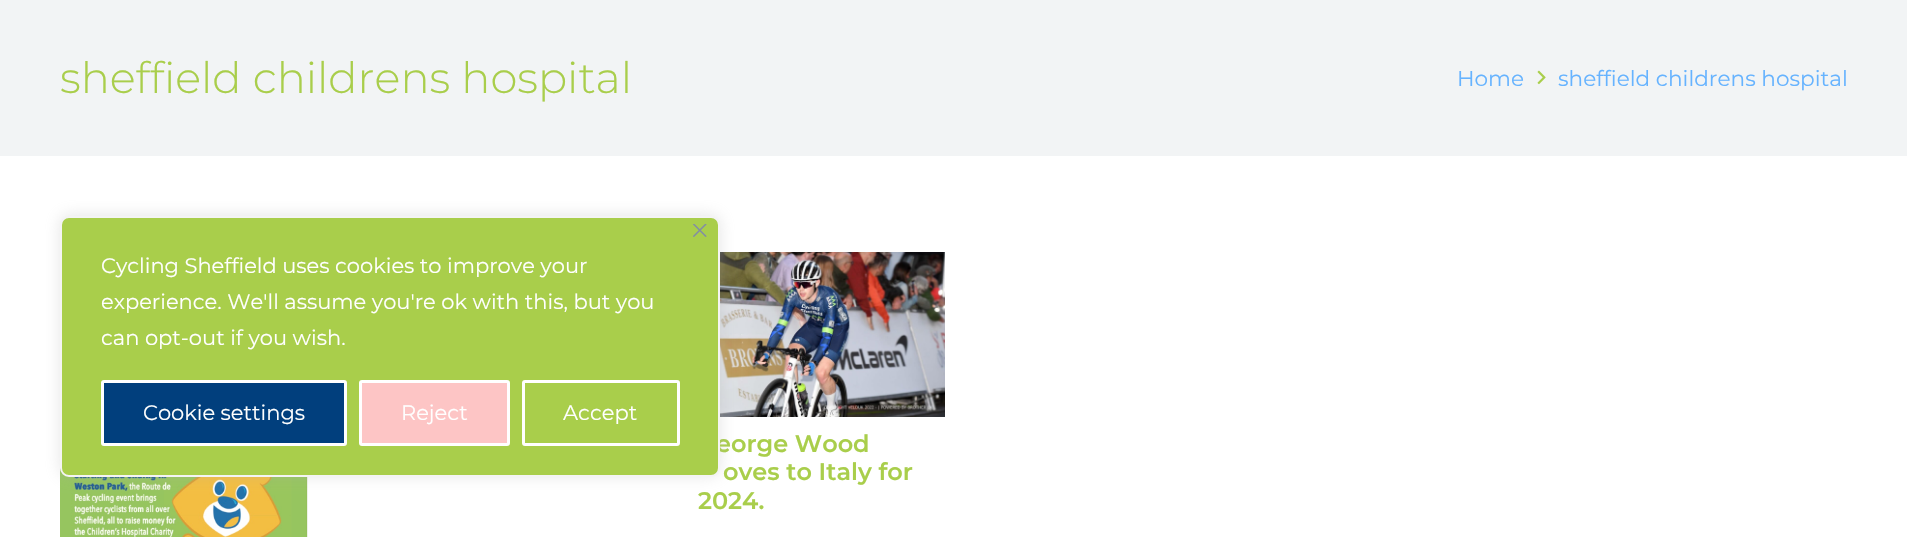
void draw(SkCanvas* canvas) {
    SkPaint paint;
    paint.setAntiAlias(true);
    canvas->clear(0xFFFFFFFF);
    paint.setColor(0xFFF2F4F5);
    canvas->drawRect(SkRect::MakeXYWH(0, 0, 1907, 156), paint);
    SkFont font1(fontMgr->matchFamilyStyle("Montserrat", SkFontStyle(300, SkFontStyle::kNormal_Width, SkFontStyle::kUpright_Slant)), 43.25f);
    font1.setSubpixel(true);
    paint.setColor(0xFFA9CE4B);
    canvas->drawString("sheffield childrens hospital", 60, 93, font1, paint);
    SkFont font2(fontMgr->matchFamilyStyle("Montserrat", SkFontStyle::Normal()), 21.6f);
    font2.setSubpixel(true);
    paint.setColor(0xFF66B3FF);
    canvas->drawString("Home", 1457, 86, font2, paint);
    canvas->drawImageRect(SkImages::DeferredFromEncodedData(SkData::MakeFromFileName("img1.png")), SkRect::MakeXYWH(1537, 70, 9, 15), SkSamplingOptions());
    canvas->drawString("sheffield childrens hospital", 1558, 86, font2, paint);
    canvas->drawImageRect(SkImages::DeferredFromEncodedData(SkData::MakeFromFileName("img2.png")), SkRect::MakeXYWH(60, 468, 248, 69), SkSamplingOptions());
    canvas->drawImageRect(SkImages::DeferredFromEncodedData(SkData::MakeFromFileName("img3.png")), SkRect::MakeXYWH(720, 252, 225, 165), SkSamplingOptions());
    SkFont font3(fontMgr->matchFamilyStyle("Montserrat", SkFontStyle(600, SkFontStyle::kNormal_Width, SkFontStyle::kUpright_Slant)), 24);
    font3.setSubpixel(true);
    paint.setColor(0xFFA9CE4B);
    canvas->drawString("eorge Wood", 716, 452, font3, paint);
    canvas->drawString("oves to Italy for", 723, 480, font3, paint);
    canvas->drawString("2024.", 698, 509, font3, paint);
    paint.setColor(0x4DACABAB);
    paint.setMaskFilter(SkMaskFilter::MakeBlur(kNormal_SkBlurStyle, 7.5f));
    canvas->drawRoundRect(SkRect::MakeXYWH(60, 215, 660, 261), 9, 9, paint);
    paint.setMaskFilter(nullptr);
    paint.setColor(0xFFA9CE4B);
    canvas->drawRoundRect(SkRect::MakeXYWH(61, 217, 658, 259), 8, 8, paint);
    paint.setStyle(SkPaint::kStroke_Style);
    paint.setStrokeWidth(2);
    paint.setColor(0xFFF4F4F4);
    canvas->drawRoundRect(SkRect::MakeXYWH(61, 217, 658, 259), 8, 8, paint);
    canvas->drawImageRect(SkImages::DeferredFromEncodedData(SkData::MakeFromFileName("img4.png")), SkRect::MakeXYWH(693, 224, 14, 13), SkSamplingOptions());
    SkFont font4(fontMgr->matchFamilyStyle("Montserrat", SkFontStyle::Normal()), 21);
    font4.setSubpixel(true);
    paint.setStyle(SkPaint::kFill_Style);
    paint.setColor(0xFFFFFFFF);
    canvas->drawString("Cycling Sheffield uses cookies to improve your", 101, 273, font4, paint);
    canvas->drawString("experience. We'll assume you're ok with this, but you", 101, 309, font4, paint);
    canvas->drawString("can opt-out if you wish.", 101, 345, font4, paint);
    paint.setColor(0xFF013F7D);
    canvas->drawRoundRect(SkRect::MakeXYWH(102.5f, 381.5f, 243, 63), 1.5f, 1.5f, paint);
    paint.setStyle(SkPaint::kStroke_Style);
    paint.setStrokeWidth(3);
    paint.setColor(0xFFFFFFFF);
    canvas->drawRoundRect(SkRect::MakeXYWH(102.5f, 381.5f, 243, 63), 1.5f, 1.5f, paint);
    paint.setStyle(SkPaint::kFill_Style);
    canvas->drawString("Cookie settings", 143, 420, font4, paint);
    paint.setColor(0xFFFDC5C5);
    canvas->drawRoundRect(SkRect::MakeXYWH(360.5f, 381.5f, 148, 63), 1.5f, 1.5f, paint);
    paint.setStyle(SkPaint::kStroke_Style);
    paint.setColor(0xFFFFFFFF);
    canvas->drawRoundRect(SkRect::MakeXYWH(360.5f, 381.5f, 148, 63), 1.5f, 1.5f, paint);
    paint.setStyle(SkPaint::kFill_Style);
    canvas->drawString("Reject", 401, 420, font4, paint);
    paint.setStyle(SkPaint::kStroke_Style);
    canvas->drawRoundRect(SkRect::MakeXYWH(523.5f, 381.5f, 155, 63), 1.5f, 1.5f, paint);
    paint.setStyle(SkPaint::kFill_Style);
    canvas->drawString("Accept", 563, 420, font4, paint);
}
